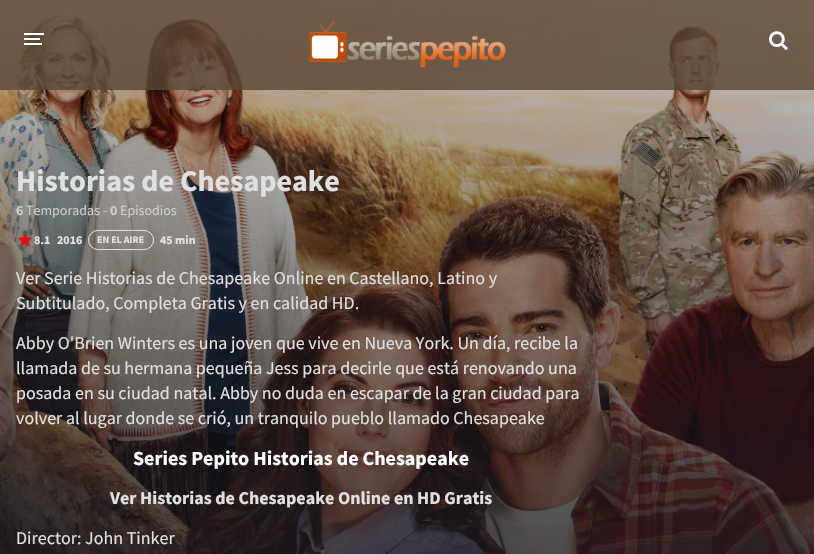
void draw(SkCanvas* canvas) {
    SkPaint paint;
    paint.setAntiAlias(true);
    canvas->clear(0xFFFFFFFF);
    canvas->drawImageRect(SkImages::DeferredFromEncodedData(SkData::MakeFromFileName("img3.png")), SkRect::MakeXYWH(0, 0, 814, 554), SkSamplingOptions());
    paint.setColor(0xCC574636);
    canvas->drawRect(SkRect::MakeXYWH(0, 0, 814, 90), paint);
    paint.setColor(0xFFFFFFFF);
    canvas->drawRect(SkRect::MakeXYWH(24, 33, 20, 2), paint);
    canvas->drawRect(SkRect::MakeXYWH(24, 38, 16, 2), paint);
    canvas->drawRect(SkRect::MakeXYWH(24, 43, 18, 2), paint);
    canvas->drawImageRect(SkImages::DeferredFromEncodedData(SkData::MakeFromFileName("img1.png")), SkRect::MakeXYWH(309, 21, 197, 47), SkSamplingOptions());
    canvas->drawImageRect(SkImages::DeferredFromEncodedData(SkData::MakeFromFileName("img2.png")), SkRect::MakeXYWH(769, 31, 19, 19), SkSamplingOptions());
    SkFont font1(fontMgr->matchFamilyStyle("Source Sans Pro", SkFontStyle::Bold()), 30);
    font1.setSubpixel(true);
    paint.setColor(0xFFE0E0E0);
    canvas->drawString("Historias de Chesapeake", 16, 191, font1, paint);
    SkFont font2(fontMgr->matchFamilyStyle("Source Sans Pro", SkFontStyle::Bold()), 14);
    font2.setSubpixel(true);
    paint.setColor(0xFFCECECD);
    canvas->drawString("6", 16, 215, font2, paint);
    SkFont font3(fontMgr->matchFamilyStyle("Source Sans Pro", SkFontStyle::Normal()), 14);
    font3.setSubpixel(true);
    canvas->drawString("Temporadas -", 26, 215, font3, paint);
    canvas->drawString("0", 110, 215, font2, paint);
    canvas->drawString("Episodios", 120, 215, font3, paint);
    canvas->drawImageRect(SkImages::DeferredFromEncodedData(SkData::MakeFromFileName("img4.png")), SkRect::MakeXYWH(17, 232, 16, 15), SkSamplingOptions());
    SkFont font4(fontMgr->matchFamilyStyle("Source Sans Pro", SkFontStyle::Bold()), 12);
    font4.setSubpixel(true);
    paint.setColor(0xFFE0E0E0);
    canvas->drawString("8.1", 34, 244, font4, paint);
    canvas->drawString("2016", 57, 244, font4, paint);
    paint.setStyle(SkPaint::kStroke_Style);
    paint.setStrokeWidth(1);
    canvas->drawRoundRect(SkRect::MakeXYWH(88.5f, 230.5f, 65, 19), 9.5f, 9.5f, paint);
    SkFont font5(fontMgr->matchFamilyStyle("Source Sans Pro", SkFontStyle::Bold()), 10);
    font5.setSubpixel(true);
    paint.setStyle(SkPaint::kFill_Style);
    canvas->drawString("EN EL AIRE", 97, 243, font5, paint);
    canvas->drawString("45 min", 160, 244, font4, paint);
    SkFont font6(fontMgr->matchFamilyStyle("Source Sans Pro", SkFontStyle::Normal()), 18);
    font6.setSubpixel(true);
    canvas->drawString("Ver Serie Historias de Chesapeake Online en Castellano, Latino y", 16, 284, font6, paint);
    canvas->drawString("Subtitulado, Completa Gratis y en calidad HD.", 16, 309, font6, paint);
    canvas->drawString("Abby O'Brien Winters es una joven que vive en Nueva York. Un día, recibe la", 16, 349, font6, paint);
    canvas->drawString("llamada de su hermana pequeña Jess para decirle que está renovando una", 16, 374, font6, paint);
    canvas->drawString("posada en su ciudad natal. Abby no duda en escapar de la gran ciudad para", 16, 399, font6, paint);
    canvas->drawString("volver al lugar donde se crió, un tranquilo pueblo llamado Chesapeake", 16, 424, font6, paint);
    SkFont font7(fontMgr->matchFamilyStyle("Source Sans Pro", SkFontStyle::Bold()), 20);
    font7.setSubpixel(true);
    paint.setColor(0xFFFFFFFF);
    canvas->drawString("Series Pepito Historias de Chesapeake", 133, 465, font7, paint);
    SkFont font8(fontMgr->matchFamilyStyle("Source Sans Pro", SkFontStyle::Bold()), 18);
    font8.setSubpixel(true);
    paint.setColor(0xFFE0E0E0);
    canvas->drawString("Ver Historias de Chesapeake Online en HD Gratis", 110, 504, font8, paint);
    canvas->drawString("Director: John Tinker", 16, 544, font6, paint);
}
